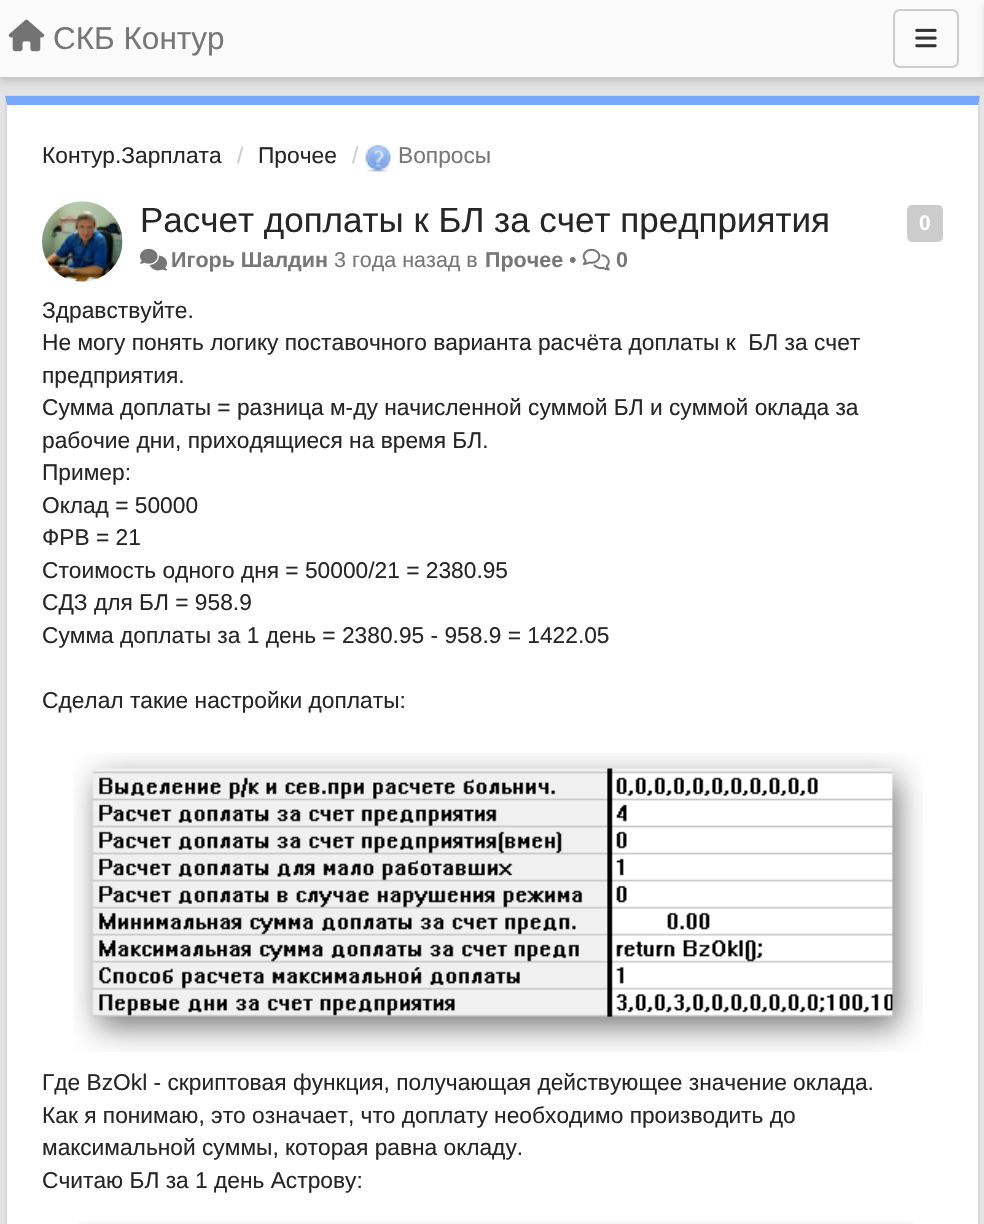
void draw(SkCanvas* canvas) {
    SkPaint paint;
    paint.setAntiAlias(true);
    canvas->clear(0xFFE3E3E3);
    paint.setColor(0x26000000);
    paint.setMaskFilter(SkMaskFilter::MakeBlur(kNormal_SkBlurStyle, 3.5f));
    canvas->drawRect(SkRect::MakeXYWH(0, 4, 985, 77), paint);
    paint.setMaskFilter(nullptr);
    paint.setColor(0xFFFBFBFB);
    canvas->drawRect(SkRect::MakeXYWH(0, 0, 984, 77), paint);
    canvas->drawImageRect(SkImages::DeferredFromEncodedData(SkData::MakeFromFileName("img1.png")), SkRect::MakeXYWH(8, 19, 37, 33), SkSamplingOptions());
    SkFont font1(fontMgr->matchFamilyStyle("Liberation Sans", SkFontStyle::Normal()), 31.5f);
    font1.setSubpixel(true);
    paint.setColor(0xFF777777);
    canvas->drawString("СКБ Контур", 53, 49, font1, paint);
    paint.setStyle(SkPaint::kStroke_Style);
    paint.setStrokeWidth(2);
    paint.setColor(0xFFCCCCCC);
    canvas->drawRoundRect(SkRect::MakeXYWH(894, 10, 64, 57), 6, 6, paint);
    canvas->drawImageRect(SkImages::DeferredFromEncodedData(SkData::MakeFromFileName("img2.png")), SkRect::MakeXYWH(915, 28, 22, 20), SkSamplingOptions());
    paint.setStyle(SkPaint::kFill_Style);
    paint.setColor(0x26000000);
    paint.setMaskFilter(SkMaskFilter::MakeBlur(kNormal_SkBlurStyle, 3.5f));
    canvas->drawRect(SkRect::MakeXYWH(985, 4, 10, 77), paint);
    paint.setMaskFilter(nullptr);
    paint.setColor(0xFFD8D8D8);
    canvas->drawRect(SkRect::MakeXYWH(5, 95, 975, 2), paint);
    paint.setColor(0xFFFFFFFF);
    canvas->drawPath(SkPathBuilder().moveTo(7, 105).lineTo(978, 105).lineTo(978, 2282).cubicTo(978, 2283, 977, 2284, 975, 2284).lineTo(10, 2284).cubicTo(9, 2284, 7, 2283, 7, 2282).close().detach(), paint);
    paint.setColor(0xFF76A7FA);
    canvas->drawPath(SkPathBuilder().moveTo(7, 105).lineTo(978, 105).lineTo(978, 106).lineTo(980, 96).lineTo(5, 96).close().detach(), paint);
    paint.setColor(0xFFD8D8D8);
    canvas->drawPath(SkPathBuilder().moveTo(980, 96).lineTo(978, 106).lineTo(978, 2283).lineTo(979, 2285).lineTo(980, 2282).close().detach(), paint);
    canvas->drawPath(SkPathBuilder().moveTo(7, 105).lineTo(7, 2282).lineTo(7, 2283).lineTo(6, 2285).lineTo(5, 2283).lineTo(5, 96).close().detach(), paint);
    SkFont font2(fontMgr->matchFamilyStyle("Liberation Sans", SkFontStyle::Normal()), 22.75f);
    font2.setSubpixel(true);
    paint.setColor(0xFF262626);
    canvas->drawString("Контур.Зарплата", 42, 163, font2, paint);
    paint.setColor(0xFFCCCCCC);
    canvas->drawString("/", 237, 163, font2, paint);
    paint.setColor(0xFF262626);
    canvas->drawString("Прочее", 258, 163, font2, paint);
    paint.setColor(0xFFCCCCCC);
    canvas->drawString("/", 352, 163, font2, paint);
    canvas->drawImageRect(SkImages::DeferredFromEncodedData(SkData::MakeFromFileName("img3.png")), SkRect::MakeXYWH(365, 144, 26, 28), SkSamplingOptions());
    paint.setColor(0xFF777777);
    canvas->drawString("Вопросы", 398, 163, font2, paint);
    canvas->drawImageRect(SkImages::DeferredFromEncodedData(SkData::MakeFromFileName("img4.png")), SkRect::MakeXYWH(42, 201, 81, 81), SkSamplingOptions());
    SkFont font3(fontMgr->matchFamilyStyle("Liberation Sans", SkFontStyle::Normal()), 35);
    font3.setSubpixel(true);
    paint.setColor(0xFF262626);
    canvas->drawString("Расчет доплаты к БЛ за счет предприятия", 140, 232, font3, paint);
    paint.setColor(0xFFCCCCCC);
    canvas->drawRoundRect(SkRect::MakeXYWH(907, 205, 36, 37), 5, 5, paint);
    SkFont font4(fontMgr->matchFamilyStyle("Liberation Sans", SkFontStyle::Bold()), 21);
    font4.setSubpixel(true);
    paint.setColor(0xFFFFFFFF);
    canvas->drawString("0", 919, 230, font4, paint);
    canvas->drawImageRect(SkImages::DeferredFromEncodedData(SkData::MakeFromFileName("img5.png")), SkRect::MakeXYWH(140, 248, 27, 23), SkSamplingOptions());
    SkFont font5(fontMgr->matchFamilyStyle("Liberation Sans", SkFontStyle::Bold()), 21.5f);
    font5.setSubpixel(true);
    paint.setColor(0xFF777777);
    canvas->drawString("Игорь Шалдин", 171, 267, font5, paint);
    SkFont font6(fontMgr->matchFamilyStyle("Liberation Sans", SkFontStyle::Normal()), 21.5f);
    font6.setSubpixel(true);
    canvas->drawString("3 года назад в", 334, 267, font6, paint);
    canvas->drawString("Прочее", 485, 267, font5, paint);
    canvas->drawString("•", 569, 267, font6, paint);
    canvas->drawImageRect(SkImages::DeferredFromEncodedData(SkData::MakeFromFileName("img6.png")), SkRect::MakeXYWH(582, 248, 28, 23), SkSamplingOptions());
    canvas->drawString("0", 616, 267, font5, paint);
    paint.setColor(0xFF262626);
    canvas->drawString("Здравствуйте.", 42, 318, font2, paint);
    canvas->drawString("Не могу понять логику поставочного варианта расчёта доплаты к  БЛ за счет", 42, 350, font2, paint);
    canvas->drawString("предприятия.", 42, 383, font2, paint);
    canvas->drawString("Сумма доплаты = разница м-ду начисленной суммой БЛ и суммой оклада за", 42, 415, font2, paint);
    canvas->drawString("рабочие дни, приходящиеся на время БЛ.", 42, 448, font2, paint);
    canvas->drawString("Пример:", 42, 480, font2, paint);
    canvas->drawString("Оклад = 50000", 42, 513, font2, paint);
    canvas->drawString("ФРВ = 21", 42, 545, font2, paint);
    canvas->drawString("Стоимость одного дня = 50000/21 = 2380.95", 42, 578, font2, paint);
    canvas->drawString("СДЗ для БЛ = 958.9", 42, 610, font2, paint);
    canvas->drawString("Сумма доплаты за 1 день = 2380.95 - 958.9 = 1422.05", 42, 643, font2, paint);
    canvas->drawString("Сделал такие настройки доплаты:", 42, 708, font2, paint);
    canvas->drawImageRect(SkImages::DeferredFromEncodedData(SkData::MakeFromFileName("img7.png")), SkRect::MakeXYWH(73, 753, 850, 299), SkSamplingOptions());
    canvas->drawString("Где BzOkl - скриптовая функция, получающая действующее значение оклада.", 42, 1090, font2, paint);
    canvas->drawString("Как я понимаю, это означает, что доплату необходимо производить до", 42, 1123, font2, paint);
    canvas->drawString("максимальной суммы, которая равна окладу.", 42, 1155, font2, paint);
    canvas->drawString("Считаю БЛ за 1 день Астрову:", 42, 1188, font2, paint);
    canvas->drawImageRect(SkImages::DeferredFromEncodedData(SkData::MakeFromFileName("img8.png")), SkRect::MakeXYWH(78, 1221, 836, 3), SkSamplingOptions());
}
